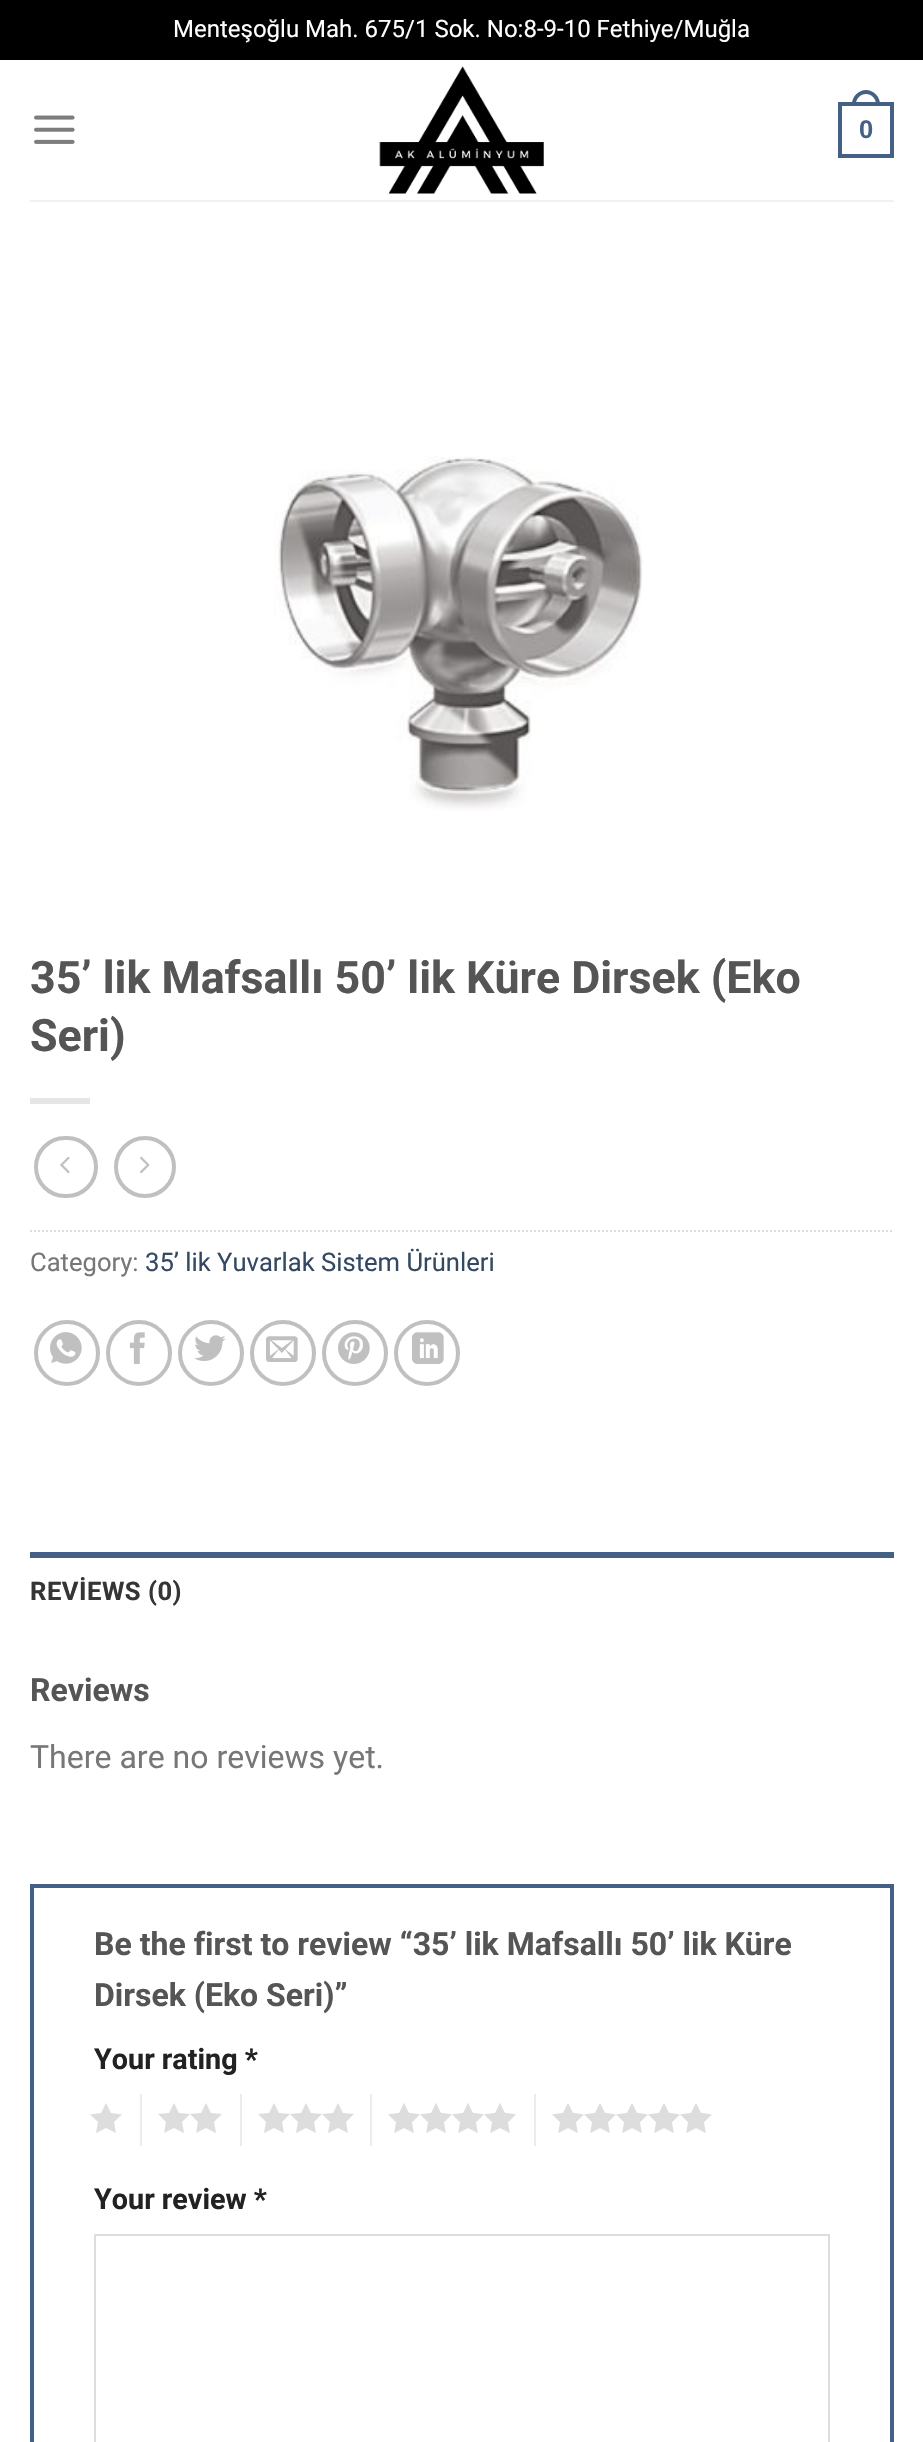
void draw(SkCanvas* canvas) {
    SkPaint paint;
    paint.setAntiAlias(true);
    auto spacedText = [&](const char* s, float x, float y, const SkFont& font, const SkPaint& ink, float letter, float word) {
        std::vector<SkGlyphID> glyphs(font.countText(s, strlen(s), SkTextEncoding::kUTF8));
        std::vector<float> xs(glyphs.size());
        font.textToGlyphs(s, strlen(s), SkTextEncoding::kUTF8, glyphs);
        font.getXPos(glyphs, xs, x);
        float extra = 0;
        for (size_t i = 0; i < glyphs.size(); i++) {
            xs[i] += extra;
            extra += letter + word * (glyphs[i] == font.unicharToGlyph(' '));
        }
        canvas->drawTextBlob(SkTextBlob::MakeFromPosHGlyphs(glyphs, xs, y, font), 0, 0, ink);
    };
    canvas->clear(0xFFFFFFFF);
    paint.setColor(0xFF000000);
    canvas->drawRect(SkRect::MakeXYWH(0, 0, 923, 60), paint);
    SkFont font1(fontMgr->matchFamilyStyle("Roboto", SkFontStyle::Normal()), 24);
    font1.setSubpixel(true);
    paint.setColor(0xFFFFFFFF);
    canvas->drawString("Menteşoğlu Mah. 675/1 Sok. No:8-9-10 Fethiye/Muğla", 173, 37, font1, paint);
    canvas->drawImageRect(SkImages::DeferredFromEncodedData(SkData::MakeFromFileName("img1.png")), SkRect::MakeXYWH(34, 115, 41, 29), SkSamplingOptions());
    canvas->drawImageRect(SkImages::DeferredFromEncodedData(SkData::MakeFromFileName("img2.png")), SkRect::MakeXYWH(379, 66, 165, 128), SkSamplingOptions());
    paint.setStyle(SkPaint::kStroke_Style);
    paint.setStrokeWidth(4);
    paint.setColor(0xFF446084);
    canvas->drawRect(SkRect::MakeXYWH(840, 104, 52, 52), paint);
    paint.setStyle(SkPaint::kFill_Style);
    canvas->drawPath(SkPathBuilder(SkPathFillType::kEvenOdd).moveTo(866, 90).cubicTo(873.5f, 90, 880, 96.5f, 880, 104).lineTo(880, 106).lineTo(852, 106).lineTo(852, 104).cubicTo(852, 96.5f, 858.5f, 90, 866, 90).close().moveTo(866, 94).cubicTo(871.5f, 94, 876, 98.5f, 876, 104).lineTo(876, 106).lineTo(856, 106).lineTo(856, 104).cubicTo(856, 98.5f, 860.5f, 94, 866, 94).close().detach(), paint);
    SkFont font2(fontMgr->matchFamilyStyle("Liberation Sans", SkFontStyle::Bold()), 25.6f);
    font2.setSubpixel(true);
    canvas->drawString("0", 859, 138, font2, paint);
    paint.setColor(0xFFF1F1F1);
    canvas->drawRect(SkRect::MakeXYWH(30, 200, 864, 2), paint);
    canvas->drawImageRect(SkImages::DeferredFromEncodedData(SkData::MakeFromFileName("img3.png")), SkRect::MakeXYWH(274, 456, 369, 355), SkSamplingOptions());
    SkFont font3(fontMgr->matchFamilyStyle("Roboto", SkFontStyle::Bold()), 44.75f);
    font3.setSubpixel(true);
    paint.setColor(0xFF555555);
    canvas->drawString("35’ lik Mafsallı 50’ lik Küre Dirsek (Eko", 30, 993, font3, paint);
    canvas->drawString("Seri)", 30, 1051, font3, paint);
    paint.setColor(0xFFE6E6E6);
    canvas->drawRect(SkRect::MakeXYWH(30, 1098, 60, 6), paint);
    paint.setStyle(SkPaint::kStroke_Style);
    paint.setColor(0xFFC0C0C0);
    canvas->drawRoundRect(SkRect::MakeXYWH(36, 1138, 60, 58), 29, 29, paint);
    canvas->drawImageRect(SkImages::DeferredFromEncodedData(SkData::MakeFromFileName("img4.png")), SkRect::MakeXYWH(60, 1156, 10, 18), SkSamplingOptions());
    canvas->drawCircle(145, 1167, 29, paint);
    canvas->drawImageRect(SkImages::DeferredFromEncodedData(SkData::MakeFromFileName("img5.png")), SkRect::MakeXYWH(140, 1156, 10, 18), SkSamplingOptions());
    paint.setStrokeWidth(2);
    paint.setColor(0xFFDDDDDD);
    paint.setPathEffect(SkDashPathEffect::Make({{2, 2}}, 0));
    canvas->drawPath(SkPathBuilder().moveTo(30, 1231).lineTo(894, 1231).detach(), paint);
    paint.setPathEffect(nullptr);
    SkFont font4(fontMgr->matchFamilyStyle("Roboto", SkFontStyle::Normal()), 25.6f);
    font4.setSubpixel(true);
    paint.setStyle(SkPaint::kFill_Style);
    paint.setColor(0xFF777777);
    canvas->drawString("Category:", 30, 1271, font4, paint);
    paint.setColor(0xFF334862);
    canvas->drawString("35’ lik Yuvarlak Sistem Ürünleri", 145, 1271, font4, paint);
    paint.setStyle(SkPaint::kStroke_Style);
    paint.setStrokeWidth(4);
    paint.setColor(0xFFC0C0C0);
    canvas->drawCircle(67, 1353, 31, paint);
    canvas->drawImageRect(SkImages::DeferredFromEncodedData(SkData::MakeFromFileName("img6.png")), SkRect::MakeXYWH(50, 1332, 32, 32), SkSamplingOptions());
    canvas->drawCircle(139, 1353, 31, paint);
    canvas->drawImageRect(SkImages::DeferredFromEncodedData(SkData::MakeFromFileName("img7.png")), SkRect::MakeXYWH(129, 1332, 16, 32), SkSamplingOptions());
    canvas->drawCircle(211, 1353, 31, paint);
    canvas->drawImageRect(SkImages::DeferredFromEncodedData(SkData::MakeFromFileName("img8.png")), SkRect::MakeXYWH(194, 1335, 32, 26), SkSamplingOptions());
    canvas->drawCircle(283, 1353, 31, paint);
    canvas->drawImageRect(SkImages::DeferredFromEncodedData(SkData::MakeFromFileName("img9.png")), SkRect::MakeXYWH(266, 1336, 32, 26), SkSamplingOptions());
    canvas->drawCircle(355, 1353, 31, paint);
    canvas->drawImageRect(SkImages::DeferredFromEncodedData(SkData::MakeFromFileName("img10.png")), SkRect::MakeXYWH(338, 1332, 32, 32), SkSamplingOptions());
    canvas->drawCircle(427, 1353, 31, paint);
    canvas->drawImageRect(SkImages::DeferredFromEncodedData(SkData::MakeFromFileName("img11.png")), SkRect::MakeXYWH(412, 1332, 32, 32), SkSamplingOptions());
    paint.setStyle(SkPaint::kFill_Style);
    paint.setColor(0xFF446084);
    canvas->drawRect(SkRect::MakeXYWH(30, 1552, 864, 6), paint);
    SkFont font5(fontMgr->matchFamilyStyle("Roboto", SkFontStyle::Bold()), 25.6f);
    font5.setSubpixel(true);
    paint.setColor(0xFF353535);
    spacedText("REVİEWS (0)", 30, 1600, font5, paint, 0.5f, 0);
    SkFont font6(fontMgr->matchFamilyStyle("Roboto", SkFontStyle::Bold()), 32);
    font6.setSubpixel(true);
    paint.setColor(0xFF555555);
    canvas->drawString("Reviews", 30, 1701, font6, paint);
    SkFont font7(fontMgr->matchFamilyStyle("Roboto", SkFontStyle::Normal()), 32);
    font7.setSubpixel(true);
    paint.setColor(0xFF777777);
    canvas->drawString("There are no reviews yet.", 30, 1768, font7, paint);
    paint.setStyle(SkPaint::kStroke_Style);
    paint.setColor(0xFF446084);
    canvas->drawRect(SkRect::MakeXYWH(32, 1886, 860, 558), paint);
    paint.setStyle(SkPaint::kFill_Style);
    paint.setColor(0xFF555555);
    canvas->drawString("Be the first to review “35’ lik Mafsallı 50’ lik Küre", 94, 1955, font6, paint);
    canvas->drawString("Dirsek (Eko Seri)”", 94, 2006, font6, paint);
    SkFont font8(fontMgr->matchFamilyStyle("Roboto", SkFontStyle::Bold()), 28.75f);
    font8.setSubpixel(true);
    paint.setColor(0xFF222222);
    canvas->drawString("Your rating *", 94, 2069, font8, paint);
    paint.setColor(0xFFDDDDDD);
    canvas->drawPath(SkPathBuilder().moveTo(122, 2114.5f).lineTo(111, 2113).lineTo(106, 2103).lineTo(101, 2113).lineTo(90, 2114.5f).lineTo(98, 2122).lineTo(96, 2133).lineTo(106, 2128).lineTo(116, 2133).lineTo(114, 2122).close().detach(), paint);
    paint.setColor(0xFFECECEC);
    canvas->drawRect(SkRect::MakeXYWH(140, 2094, 2, 52), paint);
    paint.setColor(0xFFDDDDDD);
    canvas->drawPath(SkPathBuilder().moveTo(190, 2114).lineTo(179, 2113).lineTo(174, 2103).lineTo(169, 2113).lineTo(158, 2114).lineTo(166, 2122).lineTo(164, 2133).lineTo(174, 2128).lineTo(184, 2133).lineTo(182, 2122).close().moveTo(222, 2114).lineTo(211, 2113).lineTo(206, 2103).lineTo(201, 2113).lineTo(190, 2114).lineTo(198, 2122).lineTo(196, 2133).lineTo(206, 2128).lineTo(216, 2133).lineTo(214, 2122).close().detach(), paint);
    paint.setColor(0xFFECECEC);
    canvas->drawRect(SkRect::MakeXYWH(240, 2094, 2, 52), paint);
    paint.setColor(0xFFDDDDDD);
    canvas->drawPath(SkPathBuilder().moveTo(290, 2114).lineTo(279, 2113).lineTo(274, 2103).lineTo(269, 2113).lineTo(258, 2114).lineTo(266, 2122).lineTo(264, 2133).lineTo(274, 2128).lineTo(284, 2133).lineTo(282, 2122).close().moveTo(322, 2114).lineTo(311, 2113).lineTo(306, 2103).lineTo(301, 2113).lineTo(290, 2114).lineTo(298, 2122).lineTo(296, 2133).lineTo(306, 2128).lineTo(316, 2133).lineTo(314, 2122).close().moveTo(354, 2114).lineTo(343, 2113).lineTo(338, 2103).lineTo(333, 2113).lineTo(322, 2114).lineTo(330, 2122).lineTo(328, 2133).lineTo(338, 2128).lineTo(348, 2133).lineTo(346, 2122).close().detach(), paint);
    paint.setColor(0xFFECECEC);
    canvas->drawRect(SkRect::MakeXYWH(370, 2094, 2, 52), paint);
    canvas->drawImageRect(SkImages::DeferredFromEncodedData(SkData::MakeFromFileName("img12.png")), SkRect::MakeXYWH(388, 2103, 128, 30), SkSamplingOptions());
    canvas->drawRect(SkRect::MakeXYWH(534, 2094, 2, 52), paint);
    canvas->drawImageRect(SkImages::DeferredFromEncodedData(SkData::MakeFromFileName("img13.png")), SkRect::MakeXYWH(552, 2103, 160, 30), SkSamplingOptions());
    paint.setColor(0xFF222222);
    canvas->drawString("Your review *", 94, 2209, font8, paint);
    paint.setStyle(SkPaint::kStroke_Style);
    paint.setStrokeWidth(2);
    paint.setColor(0xFFDDDDDD);
    canvas->drawRect(SkRect::MakeXYWH(95, 2235, 734, 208), paint);
}
